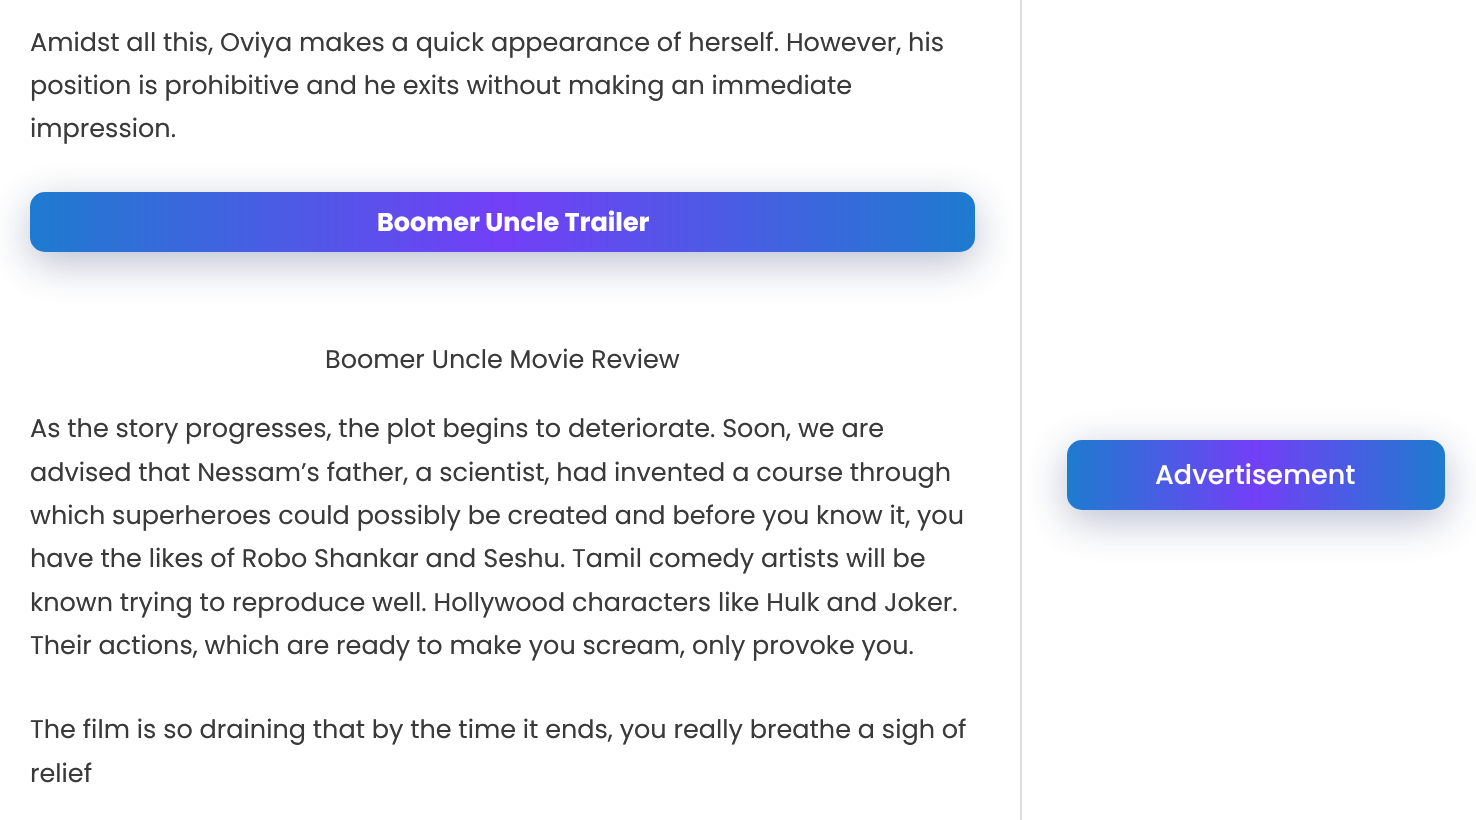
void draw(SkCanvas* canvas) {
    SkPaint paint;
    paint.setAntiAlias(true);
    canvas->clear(0xFFFFFFFF);
    paint.setColor(0xFFDDDDDD);
    canvas->drawRect(SkRect::MakeXYWH(1020, 0, 2, 820), paint);
    SkFont font1(fontMgr->matchFamilyStyle("Poppins", SkFontStyle::Normal()), 25.5f);
    font1.setSubpixel(true);
    paint.setColor(0xFF3A3A3A);
    canvas->drawString("Amidst all this, Oviya makes a quick appearance of herself. However, his", 30, 51, font1, paint);
    canvas->drawString("position is prohibitive and he exits without making an immediate", 30, 94, font1, paint);
    paint.setColor(0x4D172B63);
    paint.setMaskFilter(SkMaskFilter::MakeBlur(kNormal_SkBlurStyle, 21));
    canvas->drawRoundRect(SkRect::MakeXYWH(30, 203, 945, 60), 15, 15, paint);
    paint.setMaskFilter(nullptr);
    paint.setColor(0xFF3A3A3A);
    canvas->drawString("impression.", 30, 137, font1, paint);
    {
        const SkColor colors[] = {0xFF1E7BCF, 0xFF733FF7, 0xFF1E7BCF};
        const float stops[] = {0, 0.5f, 1};
        const SkPoint ends[] = {{30, 222}, {975, 222}};
        paint.setShader(SkGradientShader::MakeLinear(ends, colors, stops, 3, SkTileMode::kClamp));
        paint.setAlpha(255);
    }
    canvas->drawRoundRect(SkRect::MakeXYWH(30, 192, 945, 60), 15, 15, paint);
    SkFont font2(fontMgr->matchFamilyStyle("Poppins", SkFontStyle::Bold()), 25.5f);
    font2.setSubpixel(true);
    paint.setShader(nullptr);
    paint.setColor(0xFFFFFFFF);
    canvas->drawString("Boomer Uncle Trailer", 377, 231, font2, paint);
    paint.setColor(0xFF3A3A3A);
    canvas->drawString("Boomer Uncle Movie Review", 325, 368, font1, paint);
    canvas->drawString("As the story progresses, the plot begins to deteriorate. Soon, we are", 30, 437, font1, paint);
    canvas->drawString("advised that Nessam’s father, a scientist, had invented a course through", 30, 481, font1, paint);
    canvas->drawString("which superheroes could possibly be created and before you know it, you", 30, 524, font1, paint);
    canvas->drawString("have the likes of Robo Shankar and Seshu. Tamil comedy artists will be", 30, 567, font1, paint);
    canvas->drawString("known trying to reproduce well. Hollywood characters like Hulk and Joker.", 30, 611, font1, paint);
    canvas->drawString("Their actions, which are ready to make you scream, only provoke you.", 30, 654, font1, paint);
    canvas->drawString("The film is so draining that by the time it ends, you really breathe a sigh of", 30, 738, font1, paint);
    canvas->drawString("relief", 30, 782, font1, paint);
    paint.setColor(0x4D172B63);
    paint.setMaskFilter(SkMaskFilter::MakeBlur(kNormal_SkBlurStyle, 21));
    canvas->drawRoundRect(SkRect::MakeXYWH(1067, 450, 378, 71), 15, 15, paint);
    paint.setMaskFilter(nullptr);
    {
        const SkColor colors[] = {0xFF1E7BCF, 0xFF733FF7, 0xFF1E7BCF};
        const float stops[] = {0, 0.5f, 1};
        const SkPoint ends[] = {{1067, 475}, {1445, 475}};
        paint.setShader(SkGradientShader::MakeLinear(ends, colors, stops, 3, SkTileMode::kClamp));
        paint.setAlpha(255);
    }
    canvas->drawRoundRect(SkRect::MakeXYWH(1067, 440, 378, 70), 15, 15, paint);
    SkFont font3(fontMgr->matchFamilyStyle("Poppins", SkFontStyle(500, SkFontStyle::kNormal_Width, SkFontStyle::kUpright_Slant)), 27);
    font3.setSubpixel(true);
    paint.setShader(nullptr);
    paint.setColor(0xFFFFFFFF);
    canvas->drawString("Advertisement", 1155, 484, font3, paint);
}
